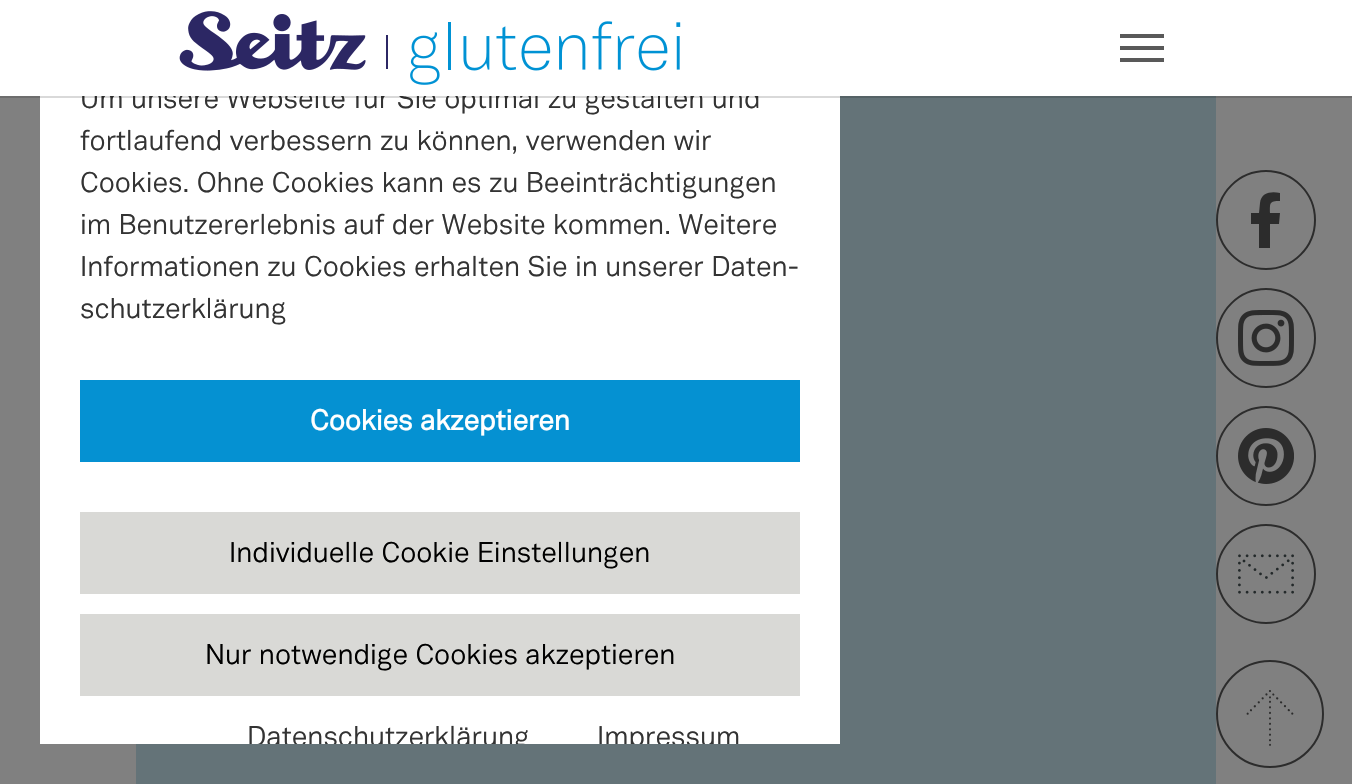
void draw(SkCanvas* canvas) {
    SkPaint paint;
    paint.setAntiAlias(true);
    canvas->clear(0xFF808080);
    paint.setColor(0xFF647378);
    canvas->drawRect(SkRect::MakeXYWH(136, 96, 1080, 688), paint);
    paint.setColor(0xFFFFFFFF);
    canvas->drawRect(SkRect::MakeXYWH(40, 96, 800, 648), paint);
    SkFont font1(fontMgr->matchFamilyStyle("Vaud", SkFontStyle::Normal()), 28);
    font1.setSubpixel(true);
    paint.setColor(0xFF333333);
    canvas->drawString("Um unsere Webseite für Sie optimal zu gestalten und", 80, 108, font1, paint);
    paint.setColor(0x26000000);
    canvas->drawRect(SkRect::MakeXYWH(0, 96, 1352, 2), paint);
    paint.setColor(0xFFFFFFFF);
    canvas->drawRect(SkRect::MakeXYWH(0, 0, 1352, 96), paint);
    canvas->drawImageRect(SkImages::DeferredFromEncodedData(SkData::MakeFromFileName("img1.png")), SkRect::MakeXYWH(179, 11, 502, 74), SkSamplingOptions());
    paint.setColor(0xFF595959);
    canvas->drawRect(SkRect::MakeXYWH(1120, 46, 44, 4), paint);
    canvas->drawRect(SkRect::MakeXYWH(1120, 34, 44, 4), paint);
    canvas->drawRect(SkRect::MakeXYWH(1120, 58, 44, 4), paint);
    paint.setStyle(SkPaint::kStroke_Style);
    paint.setStrokeWidth(2);
    paint.setColor(0xFF2C2C2C);
    canvas->drawCircle(1266, 220, 49, paint);
    paint.setStyle(SkPaint::kFill_Style);
    canvas->drawPath(SkPathBuilder().moveTo(1279, 224).lineTo(1280, 213).lineTo(1270, 213).cubicTo(1270, 203, 1269, 201, 1280, 201).lineTo(1280, 193).cubicTo(1272, 191, 1261, 192, 1260, 203).lineTo(1259, 213).lineTo(1251, 213).lineTo(1251, 224).lineTo(1259, 224).lineTo(1259, 248).lineTo(1270, 248).lineTo(1270, 224).close().detach(), paint);
    paint.setStyle(SkPaint::kStroke_Style);
    canvas->drawCircle(1266, 338, 49, paint);
    canvas->drawImageRect(SkImages::DeferredFromEncodedData(SkData::MakeFromFileName("img2.png")), SkRect::MakeXYWH(1238, 310, 56, 56), SkSamplingOptions());
    canvas->drawCircle(1266, 456, 49, paint);
    canvas->drawImageRect(SkImages::DeferredFromEncodedData(SkData::MakeFromFileName("img3.png")), SkRect::MakeXYWH(1238, 428, 56, 56), SkSamplingOptions());
    canvas->drawCircle(1266, 574, 49, paint);
    canvas->drawImageRect(SkImages::DeferredFromEncodedData(SkData::MakeFromFileName("img4.png")), SkRect::MakeXYWH(1238, 554, 56, 40), SkSamplingOptions());
    canvas->drawCircle(1270, 714, 53, paint);
    canvas->drawImageRect(SkImages::DeferredFromEncodedData(SkData::MakeFromFileName("img5.png")), SkRect::MakeXYWH(1246, 690, 48, 56), SkSamplingOptions());
    paint.setStyle(SkPaint::kFill_Style);
    paint.setColor(0xFF333333);
    canvas->drawString("fortlaufend verbessern zu können, verwenden wir", 80, 150, font1, paint);
    canvas->drawString("Cookies. Ohne Cookies kann es zu Beeinträchtigungen", 80, 192, font1, paint);
    canvas->drawString("im Benutzererlebnis auf der Website kommen. Weitere", 80, 234, font1, paint);
    canvas->drawString("Informationen zu Cookies erhalten Sie in unserer Daten-", 80, 276, font1, paint);
    canvas->drawString("schutzerklärung", 80, 318, font1, paint);
    paint.setColor(0xFF0591D2);
    canvas->drawRect(SkRect::MakeXYWH(80, 380, 720, 82), paint);
    SkFont font2(fontMgr->matchFamilyStyle("Vaud", SkFontStyle::Bold()), 28);
    font2.setSubpixel(true);
    paint.setColor(0xFFFFFFFF);
    canvas->drawString("Cookies akzeptieren", 310, 430, font2, paint);
    paint.setColor(0xFFD9D9D6);
    canvas->drawRect(SkRect::MakeXYWH(80, 512, 720, 82), paint);
    paint.setColor(0xFF000000);
    canvas->drawString("Individuelle Cookie Einstellungen", 229, 562, font1, paint);
    paint.setColor(0xFFD9D9D6);
    canvas->drawRect(SkRect::MakeXYWH(80, 614, 720, 82), paint);
    paint.setColor(0xFF000000);
    canvas->drawString("Nur notwendige Cookies akzeptieren", 205, 664, font1, paint);
    canvas->save();
    canvas->clipRect(SkRect::MakeXYWH(40, 38, 800, 706));
    paint.setColor(0xFF333333);
    canvas->drawString("Datenschutzerklärung", 247, 746, font1, paint);
    canvas->drawString("Impressum", 597, 746, font1, paint);
    canvas->restore();
}
